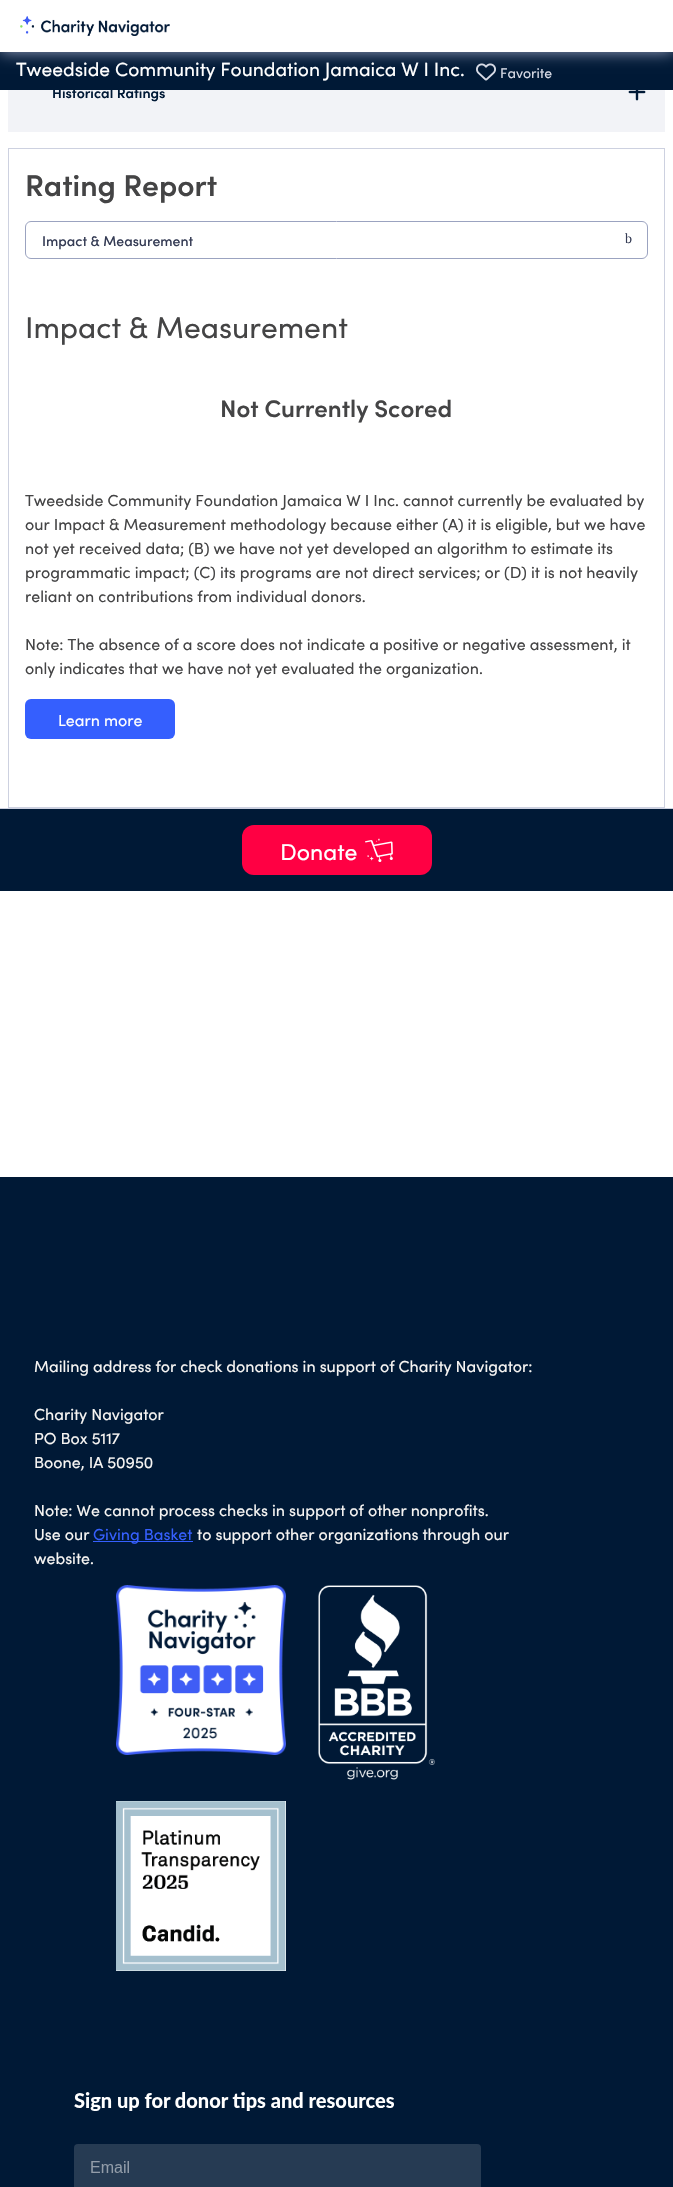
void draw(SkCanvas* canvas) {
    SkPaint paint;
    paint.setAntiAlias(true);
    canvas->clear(0xFFFFFFFF);
    paint.setColor(0xFF001936);
    canvas->drawRect(SkRect::MakeXYWH(0, 52, 673, 38), paint);
    canvas->drawImageRect(SkImages::DeferredFromEncodedData(SkData::MakeFromFileName("img2.png")), SkRect::MakeXYWH(476, 63, 20, 18), SkSamplingOptions());
    paint.setColor(0xFF9BA3C0);
    paint.setMaskFilter(SkMaskFilter::MakeBlur(kNormal_SkBlurStyle, 7.5f));
    canvas->drawRect(SkRect::MakeXYWH(0, 0, 673, 52), paint);
    paint.setMaskFilter(nullptr);
    paint.setColor(0xFFFFFFFF);
    canvas->drawRect(SkRect::MakeXYWH(0, 0, 673, 52), paint);
    canvas->drawImageRect(SkImages::DeferredFromEncodedData(SkData::MakeFromFileName("img1.png")), SkRect::MakeXYWH(20, 16, 150, 20), SkSamplingOptions());
    SkFont font1(fontMgr->matchFamilyStyle("Sofia", SkFontStyle::Normal()), 19.2f);
    font1.setSubpixel(true);
    canvas->drawString("Tweedside Community Foundation Jamaica W I Inc.", 16, 76, font1, paint);
    SkFont font2(fontMgr->matchFamilyStyle("Sofia", SkFontStyle::Normal()), 14);
    font2.setSubpixel(true);
    paint.setColor(0xFFD9DCE7);
    canvas->drawString("Favorite", 500, 78, font2, paint);
    paint.setColor(0xFFF2F3F7);
    canvas->drawRect(SkRect::MakeXYWH(8, 90, 657, 42), paint);
    SkFont font3(fontMgr->matchFamilyStyle("Sofia", SkFontStyle(600, SkFontStyle::kNormal_Width, SkFontStyle::kUpright_Slant)), 14);
    font3.setSubpixel(true);
    paint.setColor(0xFF001936);
    canvas->drawString("Historical Ratings", 52, 98, font3, paint);
    canvas->drawImageRect(SkImages::DeferredFromEncodedData(SkData::MakeFromFileName("img3.png")), SkRect::MakeXYWH(628, 90, 18, 11), SkSamplingOptions());
    paint.setStyle(SkPaint::kStroke_Style);
    paint.setStrokeWidth(1);
    paint.setColor(0xFFCDD1E0);
    canvas->drawRect(SkRect::MakeXYWH(8.5f, 148.5f, 656, 659), paint);
    SkFont font4(fontMgr->matchFamilyStyle("Sofia", SkFontStyle(600, SkFontStyle::kNormal_Width, SkFontStyle::kUpright_Slant)), 30);
    font4.setSubpixel(true);
    paint.setStyle(SkPaint::kFill_Style);
    paint.setColor(0xFF444445);
    canvas->drawString("Rating Report", 25, 196, font4, paint);
    paint.setStyle(SkPaint::kStroke_Style);
    paint.setColor(0xFF9BA3C0);
    canvas->drawRoundRect(SkRect::MakeXYWH(25.5f, 221.5f, 622, 37), 5.5f, 5.5f, paint);
    SkFont font5(fontMgr->matchFamilyStyle("Sofia", SkFontStyle(500, SkFontStyle::kNormal_Width, SkFontStyle::kUpright_Slant)), 14);
    font5.setSubpixel(true);
    paint.setStyle(SkPaint::kFill_Style);
    paint.setColor(0xFF353C55);
    canvas->drawString("Impact & Measurement", 42, 246, font5, paint);
    SkFont font6(fontMgr->matchFamilyStyle("Liberation Serif", SkFontStyle::Normal()), 14);
    font6.setSubpixel(true);
    canvas->drawString("b", 625, 243, font6, paint);
    SkFont font7(fontMgr->matchFamilyStyle("Sofia", SkFontStyle::Normal()), 30);
    font7.setSubpixel(true);
    paint.setColor(0xFF444445);
    canvas->drawString("Impact & Measurement", 25, 338, font7, paint);
    SkFont font8(fontMgr->matchFamilyStyle("Sofia", SkFontStyle(600, SkFontStyle::kNormal_Width, SkFontStyle::kUpright_Slant)), 24);
    font8.setSubpixel(true);
    canvas->drawString("Not Currently Scored", 220, 417, font8, paint);
    SkFont font9(fontMgr->matchFamilyStyle("Sofia", SkFontStyle::Normal()), 16);
    font9.setSubpixel(true);
    canvas->drawString("Tweedside Community Foundation Jamaica W I Inc. cannot currently be evaluated by", 25, 506, font9, paint);
    canvas->drawString("our Impact & Measurement methodology because either (A) it is eligible, but we have", 25, 530, font9, paint);
    canvas->drawString("not yet received data; (B) we have not yet developed an algorithm to estimate its", 25, 554, font9, paint);
    canvas->drawString("programmatic impact; (C) its programs are not direct services; or (D) it is not heavily", 25, 578, font9, paint);
    canvas->drawString("reliant on contributions from individual donors.", 25, 602, font9, paint);
    canvas->drawString("Note: The absence of a score does not indicate a positive or negative assessment, it", 25, 650, font9, paint);
    canvas->drawString("only indicates that we have not yet evaluated the organization.", 25, 674, font9, paint);
    paint.setColor(0xFF355FFE);
    canvas->drawRoundRect(SkRect::MakeXYWH(25, 699, 150, 40), 6, 6, paint);
    paint.setColor(0xFFFFFFFF);
    canvas->drawString("Learn more", 58, 726, font9, paint);
    paint.setColor(0xFF001936);
    canvas->drawRect(SkRect::MakeXYWH(0, 809, 673, 82), paint);
    paint.setColor(0xFFCDD1E0);
    canvas->drawRect(SkRect::MakeXYWH(0, 808, 673, 1), paint);
    paint.setColor(0xFFFF0043);
    canvas->drawRoundRect(SkRect::MakeXYWH(242, 825, 190, 50), 12, 12, paint);
    SkFont font10(fontMgr->matchFamilyStyle("Sofia", SkFontStyle::Normal()), 23);
    font10.setSubpixel(true);
    paint.setColor(0xFFFFFFFF);
    canvas->drawString("Donate", 280, 860, font10, paint);
    canvas->drawImageRect(SkImages::DeferredFromEncodedData(SkData::MakeFromFileName("img4.png")), SkRect::MakeXYWH(365, 838, 28, 24), SkSamplingOptions());
    paint.setColor(0xFF001936);
    canvas->drawRect(SkRect::MakeXYWH(0, 1177, 673, 1010), paint);
    paint.setColor(0xFFF7F5F3);
    canvas->drawString("Mailing address for check donations in support of Charity Navigator:", 34, 1372, font9, paint);
    canvas->drawString("Charity Navigator", 34, 1420, font9, paint);
    canvas->drawString("PO Box 5117", 34, 1444, font9, paint);
    canvas->drawString("Boone, IA 50950", 34, 1468, font9, paint);
    canvas->drawString("Note: We cannot process checks in support of other nonprofits.", 34, 1516, font9, paint);
    canvas->drawString("Use our", 34, 1540, font9, paint);
    paint.setColor(0xFF355FFE);
    canvas->drawRect(SkRect::MakeXYWH(93, 1541, 100, 1), paint);
    canvas->drawString("Giving Basket", 93, 1540, font9, paint);
    paint.setColor(0xFFF7F5F3);
    canvas->drawString("to support other organizations through our", 197, 1540, font9, paint);
    canvas->drawString("website.", 34, 1564, font9, paint);
    canvas->drawImageRect(SkImages::DeferredFromEncodedData(SkData::MakeFromFileName("img5.png")), SkRect::MakeXYWH(116, 1585, 170, 170), SkSamplingOptions());
    canvas->drawImageRect(SkImages::DeferredFromEncodedData(SkData::MakeFromFileName("img6.png")), SkRect::MakeXYWH(318, 1585, 117, 195), SkSamplingOptions());
    canvas->drawImageRect(SkImages::DeferredFromEncodedData(SkData::MakeFromFileName("img7.png")), SkRect::MakeXYWH(116, 1801, 170, 170), SkSamplingOptions());
    canvas->drawImageRect(SkImages::DeferredFromEncodedData(SkData::MakeFromFileName("img8.png")), SkRect::MakeXYWH(74, 2092, 407, 95), SkSamplingOptions());
}
